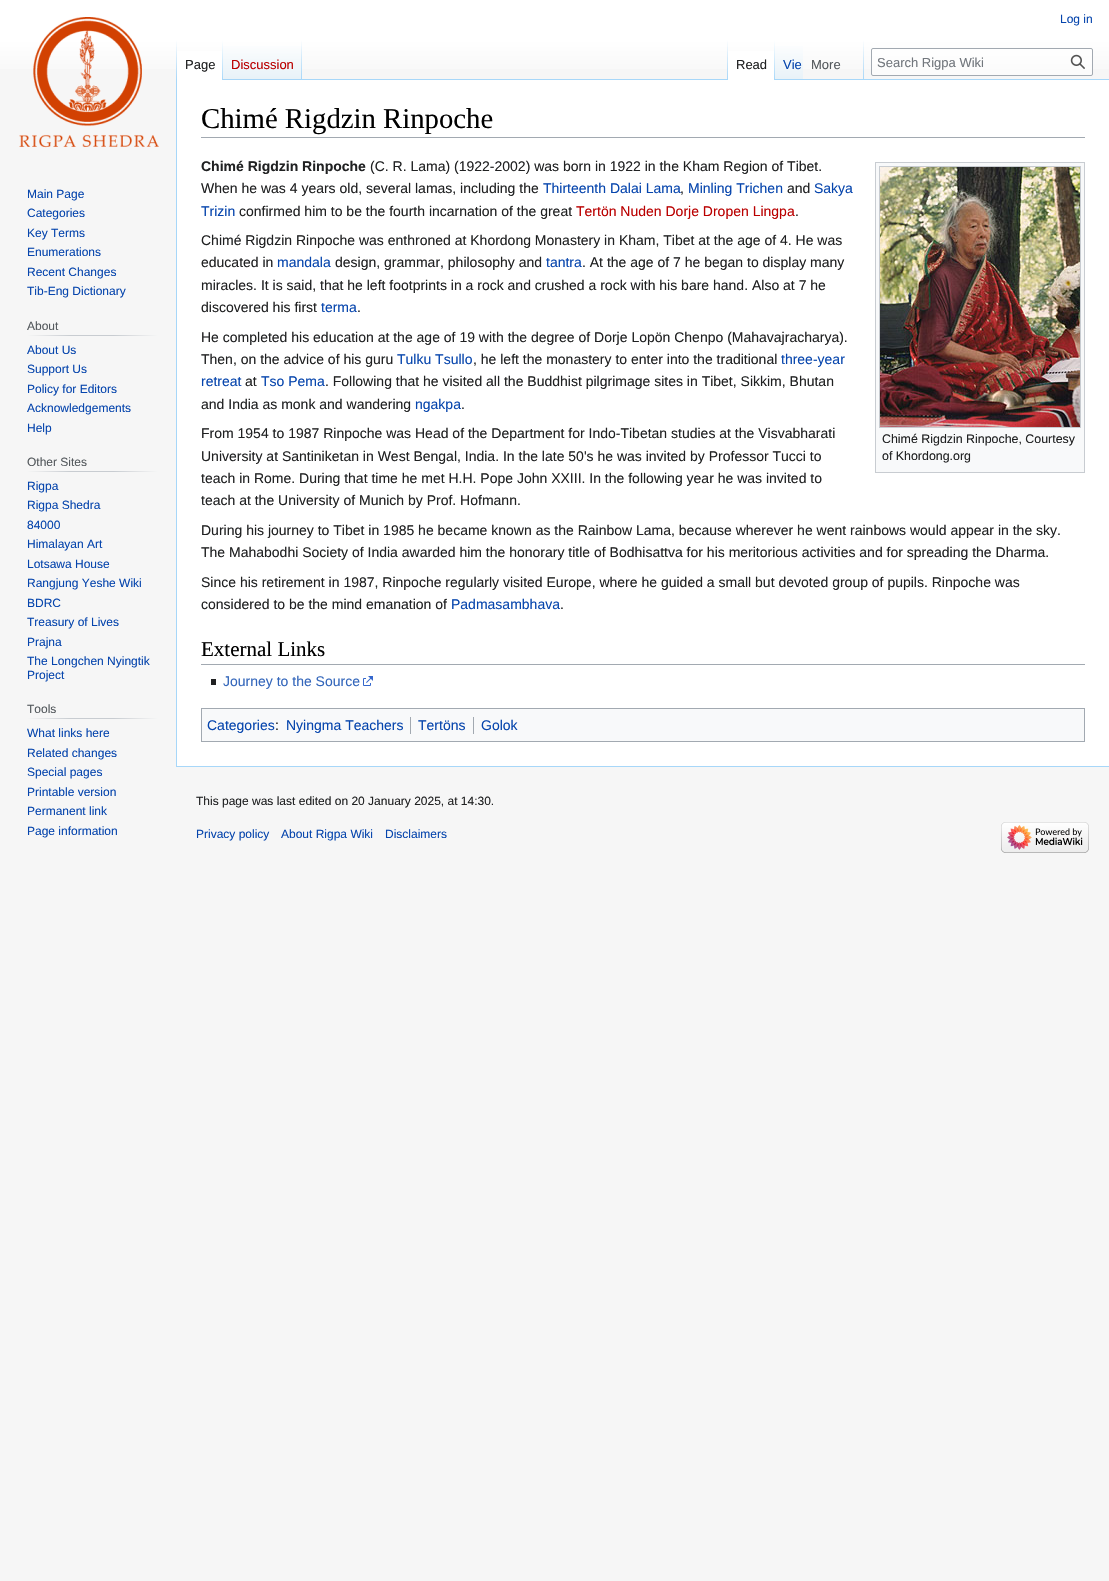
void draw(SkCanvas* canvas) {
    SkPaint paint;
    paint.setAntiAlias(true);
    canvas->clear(0xFFF6F6F6);
    {
        const SkColor colors[] = {0xFFFFFFFF, 0xFFF6F6F6};
        const float stops[] = {0.5f, 1};
        const SkPoint ends[] = {{555, 0}, {555, 80}};
        paint.setShader(SkGradientShader::MakeLinear(ends, colors, stops, 2, SkTileMode::kClamp));
        paint.setAlpha(255);
    }
    canvas->drawRect(SkRect::MakeXYWH(0, 0, 1109, 69), paint);
    SkFont font1(fontMgr->matchFamilyStyle("Liberation Sans", SkFontStyle::Normal()), 12);
    font1.setSubpixel(true);
    paint.setShader(nullptr);
    paint.setColor(0xFF0645AD);
    canvas->drawString("Log in", 1060, 23, font1, paint);
    paint.setColor(0xFFA7D7F9);
    canvas->drawRect(SkRect::MakeXYWH(176, 766, 933, 1), paint);
    canvas->drawRect(SkRect::MakeXYWH(176, 79, 1, 688), paint);
    {
        const SkColor colors[] = {0x00A7D7F9, 0xFFA7D7F9};
        const float stops[] = {0, 1};
        const SkPoint ends[] = {{177, 40}, {177, 80}};
        paint.setShader(SkGradientShader::MakeLinear(ends, colors, stops, 2, SkTileMode::kClamp));
        paint.setAlpha(255);
    }
    canvas->drawRect(SkRect::MakeXYWH(176, 40, 1, 40), paint);
    paint.setShader(nullptr);
    paint.setColor(0xFFFFFFFF);
    canvas->drawRect(SkRect::MakeXYWH(177, 51, 45, 29), paint);
    {
        const SkColor colors[] = {0xFFFFFFFF, 0xFFA7D7F9};
        const float stops[] = {0, 1};
        const SkPoint ends[] = {{223, 40}, {223, 80}};
        paint.setShader(SkGradientShader::MakeLinear(ends, colors, stops, 2, SkTileMode::kClamp));
        paint.setAlpha(255);
    }
    canvas->drawRect(SkRect::MakeXYWH(222, 40, 1, 40), paint);
    SkFont font2(fontMgr->matchFamilyStyle("Liberation Sans", SkFontStyle::Normal()), 13);
    font2.setSubpixel(true);
    paint.setShader(nullptr);
    paint.setColor(0xFF202122);
    canvas->drawString("Page", 185, 69, font2, paint);
    {
        const SkColor colors[] = {0xFF77C1F6, 0xFFE8F2F8, 0xFFFFFFFF};
        const float stops[] = {0, 0.03f, 1};
        const SkPoint ends[] = {{263, 80}, {263, 40}};
        paint.setShader(SkGradientShader::MakeLinear(ends, colors, stops, 3, SkTileMode::kClamp));
        paint.setAlpha(255);
    }
    canvas->drawRect(SkRect::MakeXYWH(223, 46, 79, 34), paint);
    {
        const SkColor colors[] = {0x00A7D7F9, 0xFFA7D7F9};
        const float stops[] = {0, 1};
        const SkPoint ends[] = {{302, 40}, {302, 80}};
        paint.setShader(SkGradientShader::MakeLinear(ends, colors, stops, 2, SkTileMode::kClamp));
        paint.setAlpha(255);
    }
    canvas->drawRect(SkRect::MakeXYWH(301, 40, 1, 40), paint);
    paint.setShader(nullptr);
    paint.setColor(0xFFBA0000);
    canvas->drawString("Discussion", 231, 69, font2, paint);
    paint.setColor(0xFFA7D7F9);
    canvas->drawRect(SkRect::MakeXYWH(302, 79, 807, 1), paint);
    {
        const SkColor colors[] = {0x00A7D7F9, 0xFFA7D7F9};
        const float stops[] = {0, 1};
        const SkPoint ends[] = {{728, 40}, {728, 80}};
        paint.setShader(SkGradientShader::MakeLinear(ends, colors, stops, 2, SkTileMode::kClamp));
        paint.setAlpha(255);
    }
    canvas->drawRect(SkRect::MakeXYWH(727, 40, 1, 40), paint);
    paint.setShader(nullptr);
    paint.setColor(0xFFFFFFFF);
    canvas->drawRect(SkRect::MakeXYWH(728, 51, 46, 29), paint);
    {
        const SkColor colors[] = {0xFFFFFFFF, 0xFFA7D7F9};
        const float stops[] = {0, 1};
        const SkPoint ends[] = {{775, 40}, {775, 80}};
        paint.setShader(SkGradientShader::MakeLinear(ends, colors, stops, 2, SkTileMode::kClamp));
        paint.setAlpha(255);
    }
    canvas->drawRect(SkRect::MakeXYWH(774, 40, 1, 40), paint);
    paint.setShader(nullptr);
    paint.setColor(0xFF202122);
    canvas->drawString("Read", 736, 69, font2, paint);
    {
        const SkColor colors[] = {0xFF77C1F6, 0xFFE8F2F8, 0xFFFFFFFF};
        const float stops[] = {0, 0.03f, 1};
        const SkPoint ends[] = {{789, 80}, {789, 40}};
        paint.setShader(SkGradientShader::MakeLinear(ends, colors, stops, 3, SkTileMode::kClamp));
        paint.setAlpha(255);
    }
    canvas->drawRect(SkRect::MakeXYWH(775, 46, 28, 33), paint);
    paint.setShader(nullptr);
    paint.setColor(0xFF0645AD);
    canvas->drawString("Vie", 783, 69, font2, paint);
    {
        const SkColor colors[] = {0x00A7D7F9, 0xFFA7D7F9};
        const float stops[] = {0, 1};
        const SkPoint ends[] = {{864, 40}, {864, 80}};
        paint.setShader(SkGradientShader::MakeLinear(ends, colors, stops, 2, SkTileMode::kClamp));
        paint.setAlpha(255);
    }
    canvas->drawRect(SkRect::MakeXYWH(863, 40, 1, 40), paint);
    paint.setShader(nullptr);
    paint.setColor(0xFF54595D);
    canvas->drawString("More", 811, 69, font2, paint);
    paint.setColor(0x80FFFFFF);
    canvas->drawRoundRect(SkRect::MakeXYWH(871.5f, 48.5f, 221, 27), 1.5f, 1.5f, paint);
    paint.setStyle(SkPaint::kStroke_Style);
    paint.setStrokeWidth(1);
    paint.setColor(0xFFA2A9B1);
    canvas->drawRoundRect(SkRect::MakeXYWH(871.5f, 48.5f, 221, 27), 1.5f, 1.5f, paint);
    paint.setStyle(SkPaint::kFill_Style);
    paint.setColor(0xFF72777D);
    canvas->drawString("Search Rigpa Wiki", 877, 67, font2, paint);
    canvas->drawImageRect(SkImages::DeferredFromEncodedData(SkData::MakeFromFileName("img1.png")), SkRect::MakeXYWH(1070, 54, 15, 15), SkSamplingOptions());
    canvas->drawImageRect(SkImages::DeferredFromEncodedData(SkData::MakeFromFileName("img2.png")), SkRect::MakeXYWH(19, 17, 141, 131), SkSamplingOptions());
    paint.setColor(0xFF0645AD);
    canvas->drawString("Main Page", 27, 198, font1, paint);
    canvas->drawString("Categories", 27, 217, font1, paint);
    canvas->drawString("Key Terms", 27, 237, font1, paint);
    canvas->drawString("Enumerations", 27, 256, font1, paint);
    canvas->drawString("Recent Changes", 27, 276, font1, paint);
    canvas->drawString("Tib-Eng Dictionary", 27, 295, font1, paint);
    {
        const SkColor colors[] = {0xFFF6F6F6, 0xFFC8CCD1, 0xFFC8CCD1, 0xFFF6F6F6};
        const float stops[] = {0, 0.33f, 0.66f, 1};
        const SkPoint ends[] = {{27, 336}, {158, 336}};
        paint.setShader(SkGradientShader::MakeLinear(ends, colors, stops, 4, SkTileMode::kClamp));
        paint.setAlpha(255);
    }
    canvas->drawRect(SkRect::MakeXYWH(27, 335, 131, 1), paint);
    paint.setShader(nullptr);
    paint.setColor(0xFF54595D);
    canvas->drawString("About", 27, 330, font1, paint);
    paint.setColor(0xFF0645AD);
    canvas->drawString("About Us", 27, 354, font1, paint);
    canvas->drawString("Support Us", 27, 373, font1, paint);
    canvas->drawString("Policy for Editors", 27, 393, font1, paint);
    canvas->drawString("Acknowledgements", 27, 412, font1, paint);
    canvas->drawString("Help", 27, 432, font1, paint);
    {
        const SkColor colors[] = {0xFFF6F6F6, 0xFFC8CCD1, 0xFFC8CCD1, 0xFFF6F6F6};
        const float stops[] = {0, 0.33f, 0.66f, 1};
        const SkPoint ends[] = {{27, 472}, {158, 472}};
        paint.setShader(SkGradientShader::MakeLinear(ends, colors, stops, 4, SkTileMode::kClamp));
        paint.setAlpha(255);
    }
    canvas->drawRect(SkRect::MakeXYWH(27, 471, 131, 1), paint);
    paint.setShader(nullptr);
    paint.setColor(0xFF54595D);
    canvas->drawString("Other Sites", 27, 466, font1, paint);
    paint.setColor(0xFF0645AD);
    canvas->drawString("Rigpa", 27, 490, font1, paint);
    canvas->drawString("Rigpa Shedra", 27, 509, font1, paint);
    canvas->drawString("84000", 27, 529, font1, paint);
    canvas->drawString("Himalayan Art", 27, 548, font1, paint);
    canvas->drawString("Lotsawa House", 27, 568, font1, paint);
    canvas->drawString("Rangjung Yeshe Wiki", 27, 587, font1, paint);
    canvas->drawString("BDRC", 27, 607, font1, paint);
    canvas->drawString("Treasury of Lives", 27, 626, font1, paint);
    canvas->drawString("Prajna", 27, 646, font1, paint);
    canvas->drawString("The Longchen Nyingtik", 27, 665, font1, paint);
    canvas->drawString("Project", 27, 679, font1, paint);
    {
        const SkColor colors[] = {0xFFF6F6F6, 0xFFC8CCD1, 0xFFC8CCD1, 0xFFF6F6F6};
        const float stops[] = {0, 0.33f, 0.66f, 1};
        const SkPoint ends[] = {{27, 719}, {158, 719}};
        paint.setShader(SkGradientShader::MakeLinear(ends, colors, stops, 4, SkTileMode::kClamp));
        paint.setAlpha(255);
    }
    canvas->drawRect(SkRect::MakeXYWH(27, 718, 131, 1), paint);
    paint.setShader(nullptr);
    paint.setColor(0xFF54595D);
    canvas->drawString("Tools", 27, 713, font1, paint);
    paint.setColor(0xFF0645AD);
    canvas->drawString("What links here", 27, 737, font1, paint);
    canvas->drawString("Related changes", 27, 757, font1, paint);
    canvas->drawString("Special pages", 27, 776, font1, paint);
    canvas->drawString("Printable version", 27, 796, font1, paint);
    canvas->drawString("Permanent link", 27, 815, font1, paint);
    canvas->drawString("Page information", 27, 835, font1, paint);
    paint.setColor(0xFFFFFFFF);
    canvas->drawRect(SkRect::MakeXYWH(177, 80, 932, 686), paint);
    paint.setColor(0xFFA2A9B1);
    canvas->drawRect(SkRect::MakeXYWH(201, 137, 884, 1), paint);
    SkFont font3(fontMgr->matchFamilyStyle("Liberation Serif", SkFontStyle::Normal()), 28.75f);
    font3.setSubpixel(true);
    paint.setColor(0xFF000000);
    canvas->drawString("Chimé Rigdzin Rinpoche", 201, 128, font3, paint);
    SkFont font4(fontMgr->matchFamilyStyle("Liberation Sans", SkFontStyle::Bold()), 14);
    font4.setSubpixel(true);
    paint.setColor(0xFF202122);
    canvas->drawString("Chimé Rigdzin Rinpoche", 201, 171, font4, paint);
    SkFont font5(fontMgr->matchFamilyStyle("Liberation Sans", SkFontStyle::Normal()), 14);
    font5.setSubpixel(true);
    canvas->drawString("(C. R. Lama) (1922-2002) was born in 1922 in the Kham Region of Tibet.", 370, 171, font5, paint);
    canvas->drawString("When he was 4 years old, several lamas, including the", 201, 193, font5, paint);
    paint.setColor(0xFF0645AD);
    canvas->drawString("Thirteenth Dalai Lama", 543, 193, font5, paint);
    paint.setColor(0xFF202122);
    canvas->drawString(",", 680, 193, font5, paint);
    paint.setColor(0xFF0645AD);
    canvas->drawString("Minling Trichen", 688, 193, font5, paint);
    paint.setColor(0xFF202122);
    canvas->drawString("and", 787, 193, font5, paint);
    paint.setColor(0xFF0645AD);
    canvas->drawString("Sakya", 814, 193, font5, paint);
    canvas->drawString("Trizin", 201, 216, font5, paint);
    paint.setColor(0xFF202122);
    canvas->drawString("confirmed him to be the fourth incarnation of the great", 239, 216, font5, paint);
    paint.setColor(0xFFBA0000);
    canvas->drawString("Tertön Nuden Dorje Dropen Lingpa", 576, 216, font5, paint);
    paint.setColor(0xFF202122);
    canvas->drawString(".", 795, 216, font5, paint);
    canvas->drawString("Chimé Rigdzin Rinpoche was enthroned at Khordong Monastery in Kham, Tibet at the age of 4. He was", 201, 245, font5, paint);
    canvas->drawString("educated in", 201, 267, font5, paint);
    paint.setColor(0xFF0645AD);
    canvas->drawString("mandala", 277, 267, font5, paint);
    paint.setColor(0xFF202122);
    canvas->drawString("design, grammar, philosophy and", 335, 267, font5, paint);
    paint.setColor(0xFF0645AD);
    canvas->drawString("tantra", 546, 267, font5, paint);
    paint.setColor(0xFF202122);
    canvas->drawString(". At the age of 7 he began to display many", 582, 267, font5, paint);
    canvas->drawString("miracles. It is said, that he left footprints in a rock and crushed a rock with his bare hand. Also at 7 he", 201, 290, font5, paint);
    canvas->drawString("discovered his first", 201, 312, font5, paint);
    paint.setColor(0xFF0645AD);
    canvas->drawString("terma", 321, 312, font5, paint);
    paint.setColor(0xFF202122);
    canvas->drawString(".", 357, 312, font5, paint);
    canvas->drawString("He completed his education at the age of 19 with the degree of Dorje Lopön Chenpo (Mahavajracharya).", 201, 342, font5, paint);
    canvas->drawString("Then, on the advice of his guru", 201, 364, font5, paint);
    paint.setColor(0xFF0645AD);
    canvas->drawString("Tulku Tsullo", 397, 364, font5, paint);
    paint.setColor(0xFF202122);
    canvas->drawString(", he left the monastery to enter into the traditional", 473, 364, font5, paint);
    paint.setColor(0xFF0645AD);
    canvas->drawString("three-year", 781, 364, font5, paint);
    canvas->drawString("retreat", 201, 386, font5, paint);
    paint.setColor(0xFF202122);
    canvas->drawString("at", 245, 386, font5, paint);
    paint.setColor(0xFF0645AD);
    canvas->drawString("Tso Pema", 261, 386, font5, paint);
    paint.setColor(0xFF202122);
    canvas->drawString(". Following that he visited all the Buddhist pilgrimage sites in Tibet, Sikkim, Bhutan", 325, 386, font5, paint);
    canvas->drawString("and India as monk and wandering", 201, 409, font5, paint);
    paint.setColor(0xFF0645AD);
    canvas->drawString("ngakpa", 415, 409, font5, paint);
    paint.setColor(0xFF202122);
    canvas->drawString(".", 461, 409, font5, paint);
    canvas->drawString("From 1954 to 1987 Rinpoche was Head of the Department for Indo-Tibetan studies at the Visvabharati", 201, 438, font5, paint);
    canvas->drawString("University at Santiniketan in West Bengal, India. In the late 50's he was invited by Professor Tucci to", 201, 461, font5, paint);
    canvas->drawString("teach in Rome. During that time he met H.H. Pope John XXIII. In the following year he was invited to", 201, 483, font5, paint);
    canvas->drawString("teach at the University of Munich by Prof. Hofmann.", 201, 505, font5, paint);
    paint.setColor(0xFFF8F9FA);
    canvas->drawRect(SkRect::MakeXYWH(876, 163, 208, 309), paint);
    paint.setColor(0xFFC8CCD1);
    canvas->drawRect(SkRect::MakeXYWH(875, 162, 210, 1), paint);
    canvas->drawRect(SkRect::MakeXYWH(875, 472, 210, 1), paint);
    canvas->drawRect(SkRect::MakeXYWH(1084, 162, 1, 311), paint);
    canvas->drawRect(SkRect::MakeXYWH(875, 162, 1, 311), paint);
    paint.setStyle(SkPaint::kStroke_Style);
    canvas->drawRect(SkRect::MakeXYWH(879.5f, 166.5f, 201, 261), paint);
    canvas->drawImageRect(SkImages::DeferredFromEncodedData(SkData::MakeFromFileName("img3.png")), SkRect::MakeXYWH(880, 167, 200, 260), SkSamplingOptions());
    SkFont font6(fontMgr->matchFamilyStyle("Liberation Sans", SkFontStyle::Normal()), 12.4f);
    font6.setSubpixel(true);
    paint.setStyle(SkPaint::kFill_Style);
    paint.setColor(0xFF202122);
    canvas->drawString("Chimé Rigdzin Rinpoche, Courtesy", 882, 443, font6, paint);
    canvas->drawString("of Khordong.org", 882, 460, font6, paint);
    canvas->drawString("During his journey to Tibet in 1985 he became known as the Rainbow Lama, because wherever he went rainbows would appear in the sky.", 201, 535, font5, paint);
    canvas->drawString("The Mahabodhi Society of India awarded him the honorary title of Bodhisattva for his meritorious activities and for spreading the Dharma.", 201, 557, font5, paint);
    canvas->drawString("Since his retirement in 1987, Rinpoche regularly visited Europe, where he guided a small but devoted group of pupils. Rinpoche was", 201, 587, font5, paint);
    canvas->drawString("considered to be the mind emanation of", 201, 609, font5, paint);
    paint.setColor(0xFF0645AD);
    canvas->drawString("Padmasambhava", 451, 609, font5, paint);
    paint.setColor(0xFF202122);
    canvas->drawString(".", 560, 609, font5, paint);
    paint.setColor(0xFFA2A9B1);
    canvas->drawRect(SkRect::MakeXYWH(201, 664, 884, 1), paint);
    SkFont font7(fontMgr->matchFamilyStyle("Liberation Serif", SkFontStyle::Normal()), 21);
    font7.setSubpixel(true);
    paint.setColor(0xFF000000);
    canvas->drawString("External Links", 201, 656, font7, paint);
    paint.setColor(0xFF202122);
    canvas->drawRect(SkRect::MakeXYWH(211, 679, 5, 6), paint);
    paint.setColor(0xFF3366BB);
    canvas->drawString("Journey to the Source", 223, 686, font5, paint);
    canvas->drawImageRect(SkImages::DeferredFromEncodedData(SkData::MakeFromFileName("img4.png")), SkRect::MakeXYWH(363, 676, 10, 10), SkSamplingOptions());
    paint.setColor(0xFFF8F9FA);
    canvas->drawRect(SkRect::MakeXYWH(201.5f, 708.5f, 883, 33), paint);
    paint.setStyle(SkPaint::kStroke_Style);
    paint.setColor(0xFFA2A9B1);
    canvas->drawRect(SkRect::MakeXYWH(201.5f, 708.5f, 883, 33), paint);
    paint.setStyle(SkPaint::kFill_Style);
    paint.setColor(0xFF0645AD);
    canvas->drawString("Categories", 207, 730, font5, paint);
    paint.setColor(0xFF202122);
    canvas->drawString(":", 275, 730, font5, paint);
    paint.setColor(0xFF0645AD);
    canvas->drawString("Nyingma Teachers", 286, 730, font5, paint);
    paint.setColor(0xFFA2A9B1);
    canvas->drawRect(SkRect::MakeXYWH(410, 717, 1, 17), paint);
    paint.setColor(0xFF0645AD);
    canvas->drawString("Tertöns", 418, 730, font5, paint);
    paint.setColor(0xFFA2A9B1);
    canvas->drawRect(SkRect::MakeXYWH(473, 717, 1, 17), paint);
    paint.setColor(0xFF0645AD);
    canvas->drawString("Golok", 481, 730, font5, paint);
    paint.setColor(0xFF202122);
    canvas->drawString("This page was last edited on 20 January 2025, at 14:30.", 196, 805, font1, paint);
    paint.setColor(0xFF0645AD);
    canvas->drawString("Privacy policy", 196, 838, font1, paint);
    canvas->drawString("About Rigpa Wiki", 281, 838, font1, paint);
    canvas->drawString("Disclaimers", 385, 838, font1, paint);
    canvas->drawImageRect(SkImages::DeferredFromEncodedData(SkData::MakeFromFileName("img5.png")), SkRect::MakeXYWH(1001, 822, 88, 31), SkSamplingOptions());
}
